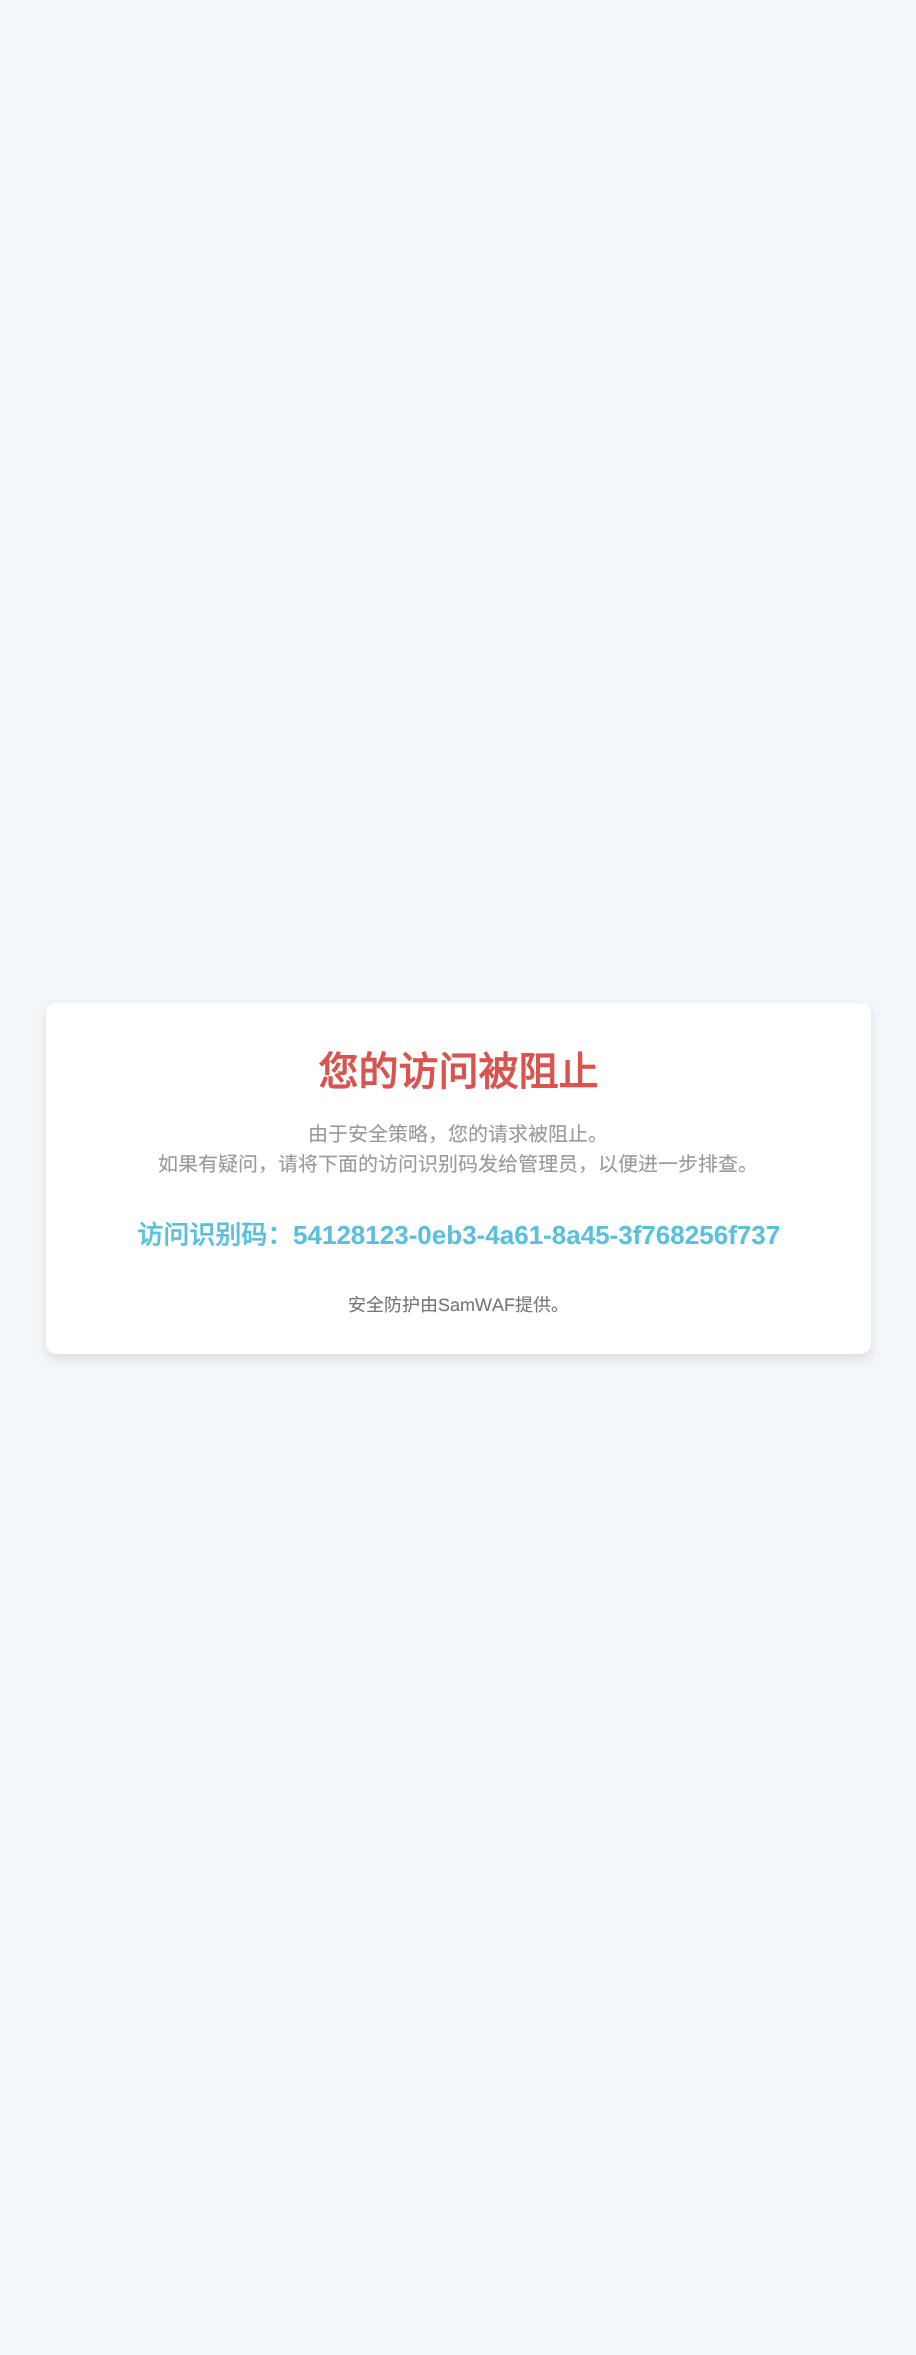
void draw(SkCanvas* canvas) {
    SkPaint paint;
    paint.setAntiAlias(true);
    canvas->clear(0xFFF4F7FA);
    paint.setColor(0x1A000000);
    paint.setMaskFilter(SkMaskFilter::MakeBlur(kNormal_SkBlurStyle, 5));
    canvas->drawRoundRect(SkRect::MakeXYWH(46, 1008, 825, 351), 10, 10, paint);
    paint.setMaskFilter(nullptr);
    paint.setColor(0xFFFFFFFF);
    canvas->drawRoundRect(SkRect::MakeXYWH(46, 1003, 825, 351), 10, 10, paint);
    SkFont font1(fontMgr->matchFamilyStyle("Noto Sans CJK SC", SkFontStyle::Bold()), 40);
    font1.setSubpixel(true);
    paint.setColor(0xFFD9534F);
    canvas->drawString("您的访问被阻止", 318, 1086, font1, paint);
    SkFont font2(fontMgr->matchFamilyStyle("Noto Sans CJK SC", SkFontStyle::Normal()), 20);
    font2.setSubpixel(true);
    paint.setColor(0xFF999999);
    canvas->drawString("由于安全策略，您的请求被阻止。", 308, 1141, font2, paint);
    canvas->drawString("如果有疑问，请将下面的访问识别码发给管理员，以便进一步排查。", 158, 1171, font2, paint);
    SkFont font3(fontMgr->matchFamilyStyle("Noto Sans CJK SC", SkFontStyle::Bold()), 26);
    font3.setSubpixel(true);
    paint.setColor(0xFF5BC0DE);
    canvas->drawString("访问识别码：", 137, 1244, font3, paint);
    SkFont font4(fontMgr->matchFamilyStyle("Liberation Sans", SkFontStyle::Bold()), 26);
    font4.setSubpixel(true);
    canvas->drawString("54128123-0eb3-4a61-8a45-3f768256f737", 293, 1244, font4, paint);
    SkFont font5(fontMgr->matchFamilyStyle("Noto Sans CJK SC", SkFontStyle::Normal()), 18);
    font5.setSubpixel(true);
    paint.setColor(0xFF777777);
    canvas->drawString("安全防护由", 348, 1311, font5, paint);
    SkFont font6(fontMgr->matchFamilyStyle("Liberation Sans", SkFontStyle::Normal()), 18);
    font6.setSubpixel(true);
    canvas->drawString("SamWAF", 438, 1311, font6, paint);
    canvas->drawString("提供。", 515, 1311, font5, paint);
}
